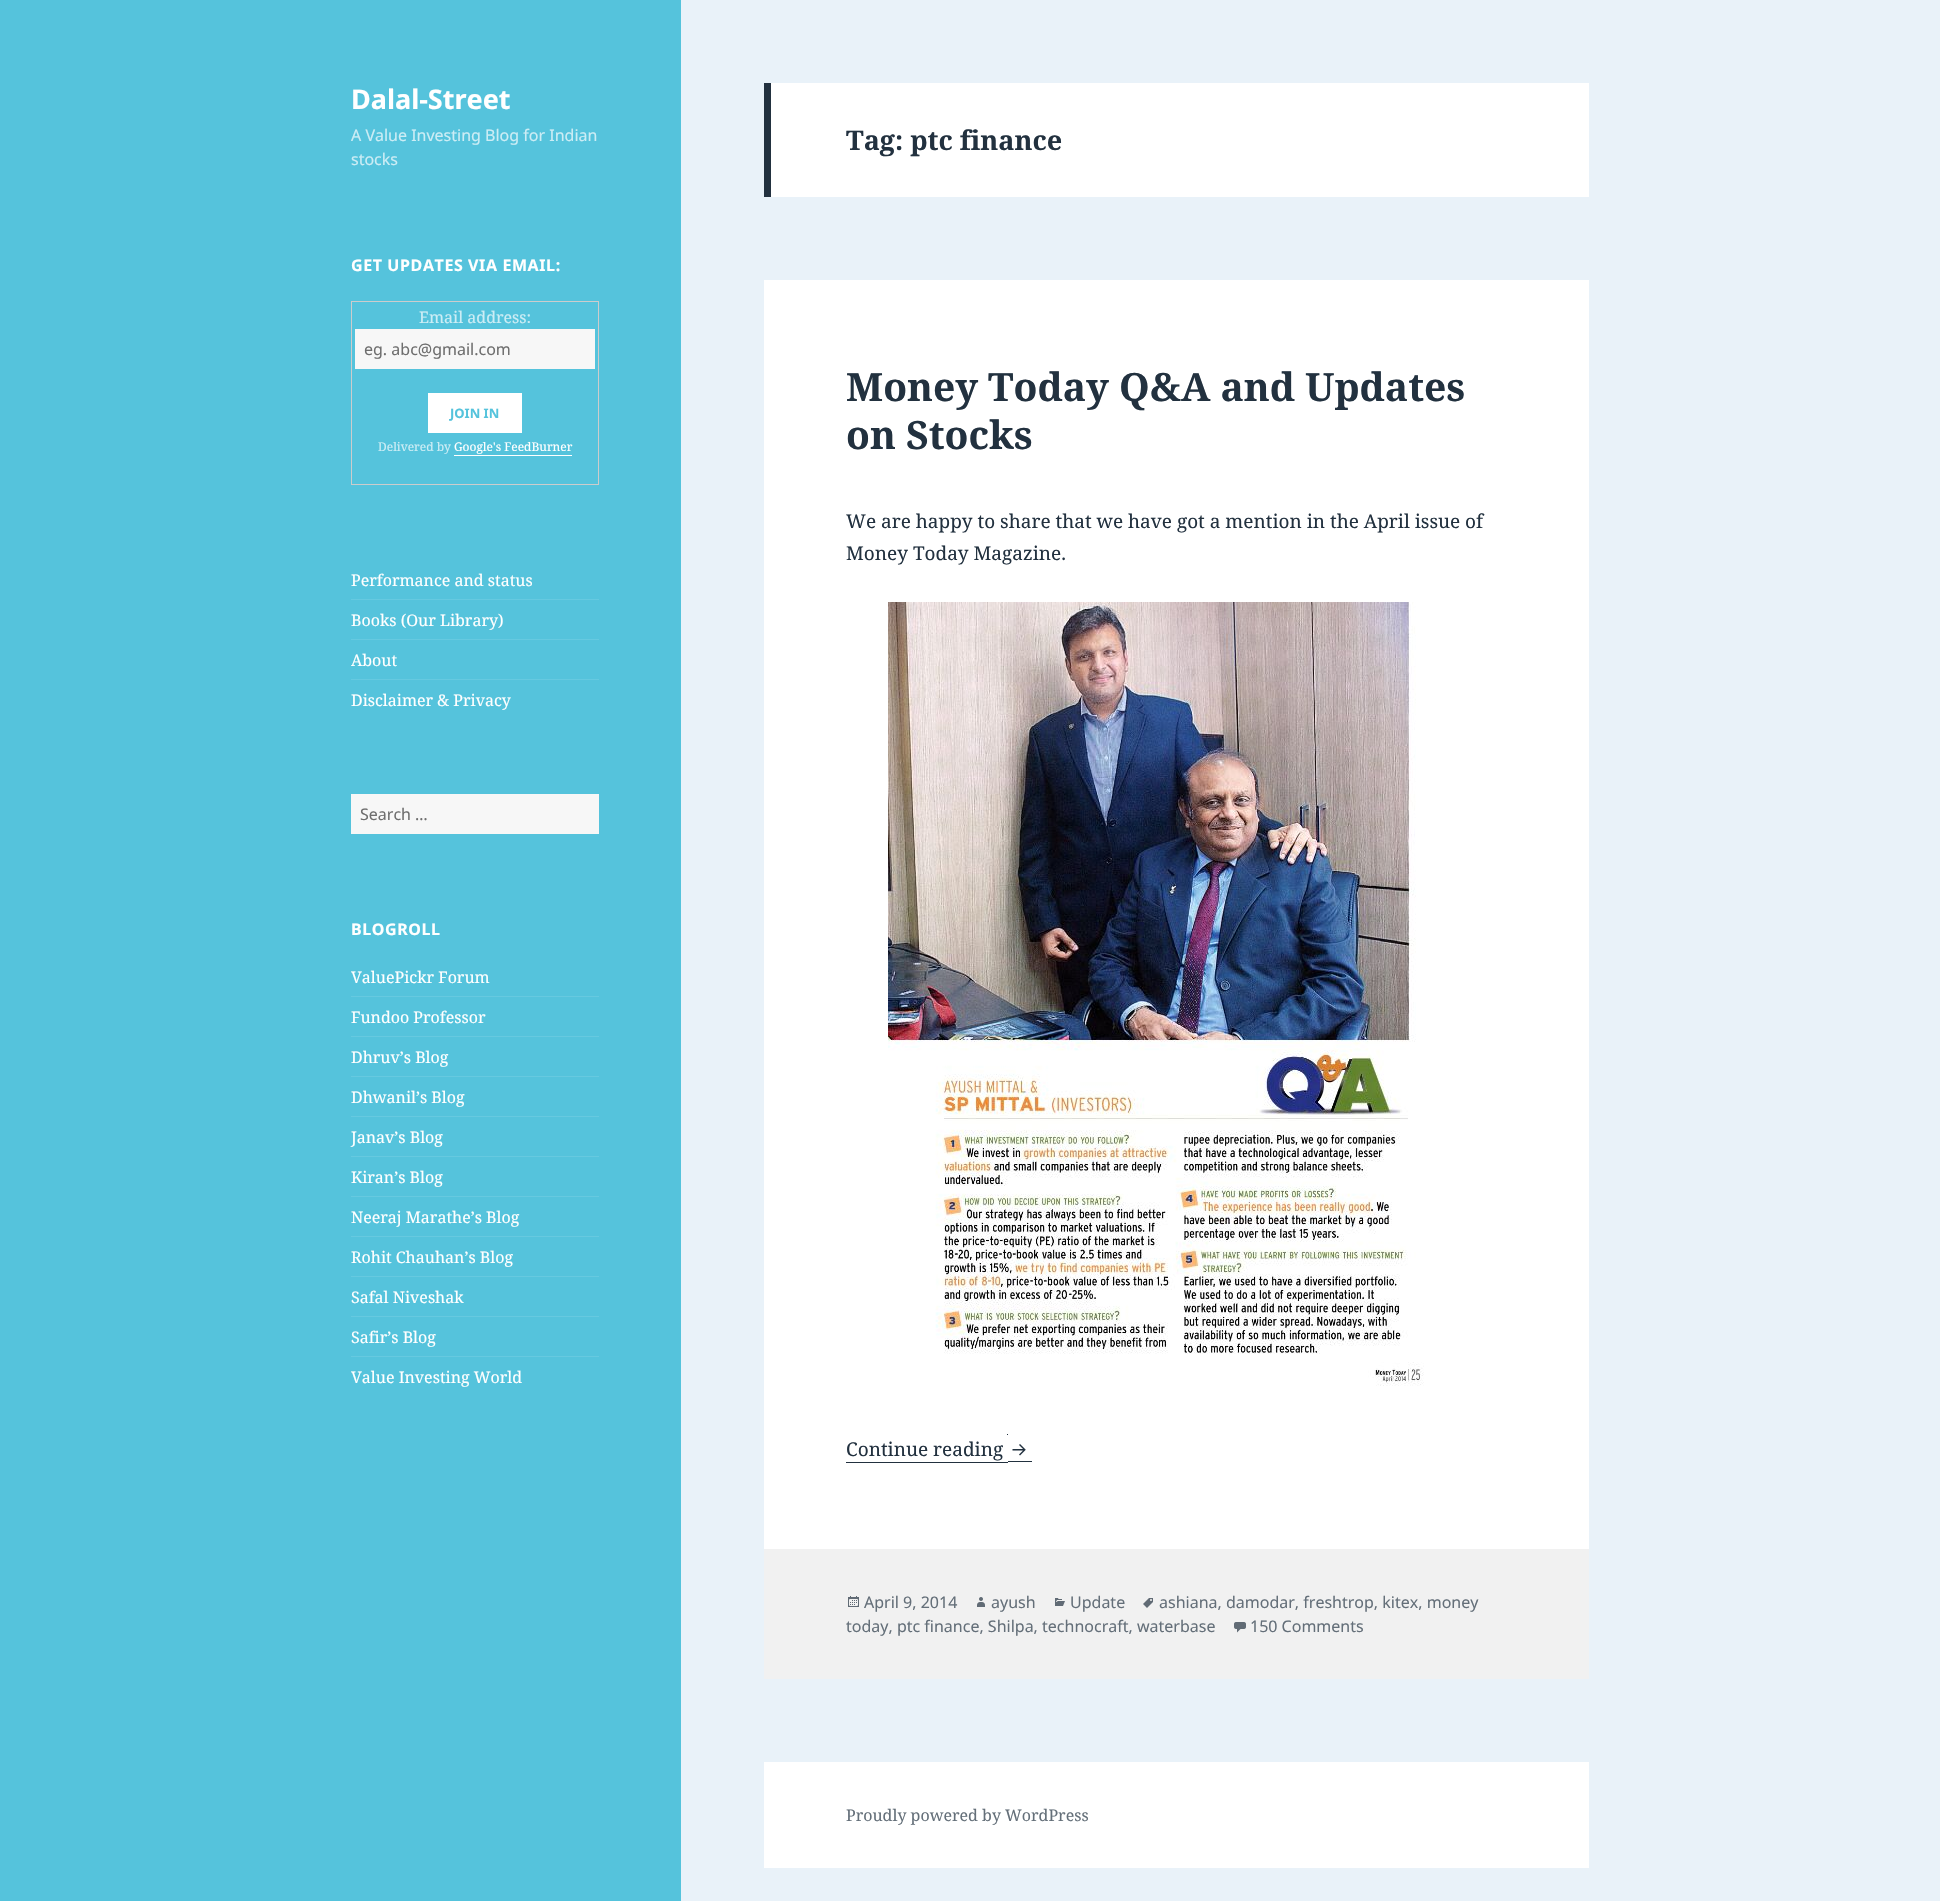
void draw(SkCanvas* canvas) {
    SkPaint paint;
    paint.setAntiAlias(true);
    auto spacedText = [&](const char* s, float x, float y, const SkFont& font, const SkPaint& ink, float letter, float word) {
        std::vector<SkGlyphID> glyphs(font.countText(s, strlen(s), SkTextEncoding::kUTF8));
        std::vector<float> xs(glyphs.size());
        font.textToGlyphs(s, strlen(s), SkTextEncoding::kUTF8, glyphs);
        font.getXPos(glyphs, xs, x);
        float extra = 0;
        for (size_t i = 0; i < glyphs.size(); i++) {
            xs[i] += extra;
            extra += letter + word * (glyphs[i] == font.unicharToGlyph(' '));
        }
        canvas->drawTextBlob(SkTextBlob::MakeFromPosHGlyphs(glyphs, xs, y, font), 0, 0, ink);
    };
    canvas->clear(0xFFE9F2F9);
    paint.setColor(0xFF55C3DC);
    canvas->drawRect(SkRect::MakeXYWH(0, 0, 681, 1901), paint);
    SkFont font1(fontMgr->matchFamilyStyle("Noto Sans", SkFontStyle::Bold()), 27);
    font1.setSubpixel(true);
    paint.setColor(0xFFFFFFFF);
    canvas->drawString("Dalal-Street", 351, 109, font1, paint);
    SkFont font2(fontMgr->matchFamilyStyle("Noto Sans", SkFontStyle::Normal()), 16);
    font2.setSubpixel(true);
    paint.setColor(0xFFCCEDF5);
    canvas->drawString("A Value Investing Blog for Indian", 351, 141, font2, paint);
    canvas->drawString("stocks", 351, 165, font2, paint);
    SkFont font3(fontMgr->matchFamilyStyle("Noto Sans", SkFontStyle::Bold()), 16);
    font3.setSubpixel(true);
    paint.setColor(0xFFFFFFFF);
    spacedText("GET UPDATES VIA EMAIL:", 351, 271, font3, paint, 0.6f, 0);
    paint.setStyle(SkPaint::kStroke_Style);
    paint.setStrokeWidth(1);
    paint.setColor(0xFFCCCCCC);
    canvas->drawRect(SkRect::MakeXYWH(351.5f, 301.5f, 247, 183), paint);
    SkFont font4(fontMgr->matchFamilyStyle("Noto Serif", SkFontStyle::Normal()), 16);
    font4.setSubpixel(true);
    paint.setStyle(SkPaint::kFill_Style);
    paint.setColor(0xFFCCEDF5);
    canvas->drawString("Email address:", 419, 323, font4, paint);
    paint.setColor(0xFFF7F7F7);
    canvas->drawRect(SkRect::MakeXYWH(355, 329, 240, 40), paint);
    paint.setColor(0xFF6E6E6E);
    canvas->drawString("eg. abc@gmail.com", 364, 355, font2, paint);
    paint.setColor(0xFFFFFFFF);
    canvas->drawRect(SkRect::MakeXYWH(428, 393, 94, 40), paint);
    SkFont font5(fontMgr->matchFamilyStyle("Noto Sans", SkFontStyle::Bold()), 13);
    font5.setSubpixel(true);
    paint.setColor(0xFF55C3DC);
    canvas->drawString("JOIN IN", 450, 418, font5, paint);
    SkFont font6(fontMgr->matchFamilyStyle("Noto Serif", SkFontStyle::Normal()), 12);
    font6.setSubpixel(true);
    paint.setColor(0xFFCCEDF5);
    canvas->drawString("Delivered by", 378, 451, font6, paint);
    paint.setColor(0xFFFFFFFF);
    canvas->drawString("Google's FeedBurner", 454, 451, font6, paint);
    canvas->drawRect(SkRect::MakeXYWH(454, 455, 118, 1), paint);
    canvas->drawString("Performance and status", 351, 586, font4, paint);
    paint.setColor(0xFF66C9E0);
    canvas->drawRect(SkRect::MakeXYWH(351, 599, 248, 1), paint);
    paint.setColor(0xFFFFFFFF);
    canvas->drawString("Books (Our Library)", 351, 626, font4, paint);
    paint.setColor(0xFF66C9E0);
    canvas->drawRect(SkRect::MakeXYWH(351, 639, 248, 1), paint);
    paint.setColor(0xFFFFFFFF);
    canvas->drawString("About", 351, 666, font4, paint);
    paint.setColor(0xFF66C9E0);
    canvas->drawRect(SkRect::MakeXYWH(351, 679, 248, 1), paint);
    paint.setColor(0xFFFFFFFF);
    canvas->drawString("Disclaimer & Privacy", 351, 706, font4, paint);
    paint.setColor(0xFFF7F7F7);
    canvas->drawRect(SkRect::MakeXYWH(351, 794, 248, 40), paint);
    paint.setColor(0xFF6E6E6E);
    canvas->drawString("Search …", 360, 820, font2, paint);
    paint.setColor(0xFFFFFFFF);
    spacedText("BLOGROLL", 351, 935, font3, paint, 0.6f, 0);
    canvas->drawString("ValuePickr Forum", 351, 983, font4, paint);
    paint.setColor(0xFF66C9E0);
    canvas->drawRect(SkRect::MakeXYWH(351, 996, 248, 1), paint);
    paint.setColor(0xFFFFFFFF);
    canvas->drawString("Fundoo Professor", 351, 1023, font4, paint);
    paint.setColor(0xFF66C9E0);
    canvas->drawRect(SkRect::MakeXYWH(351, 1036, 248, 1), paint);
    paint.setColor(0xFFFFFFFF);
    canvas->drawString("Dhruv’s Blog", 351, 1063, font4, paint);
    paint.setColor(0xFF66C9E0);
    canvas->drawRect(SkRect::MakeXYWH(351, 1076, 248, 1), paint);
    paint.setColor(0xFFFFFFFF);
    canvas->drawString("Dhwanil’s Blog", 351, 1103, font4, paint);
    paint.setColor(0xFF66C9E0);
    canvas->drawRect(SkRect::MakeXYWH(351, 1116, 248, 1), paint);
    paint.setColor(0xFFFFFFFF);
    canvas->drawString("Janav’s Blog", 351, 1143, font4, paint);
    paint.setColor(0xFF66C9E0);
    canvas->drawRect(SkRect::MakeXYWH(351, 1156, 248, 1), paint);
    paint.setColor(0xFFFFFFFF);
    canvas->drawString("Kiran’s Blog", 351, 1183, font4, paint);
    paint.setColor(0xFF66C9E0);
    canvas->drawRect(SkRect::MakeXYWH(351, 1196, 248, 1), paint);
    paint.setColor(0xFFFFFFFF);
    canvas->drawString("Neeraj Marathe’s Blog", 351, 1223, font4, paint);
    paint.setColor(0xFF66C9E0);
    canvas->drawRect(SkRect::MakeXYWH(351, 1236, 248, 1), paint);
    paint.setColor(0xFFFFFFFF);
    canvas->drawString("Rohit Chauhan’s Blog", 351, 1263, font4, paint);
    paint.setColor(0xFF66C9E0);
    canvas->drawRect(SkRect::MakeXYWH(351, 1276, 248, 1), paint);
    paint.setColor(0xFFFFFFFF);
    canvas->drawString("Safal Niveshak", 351, 1303, font4, paint);
    paint.setColor(0xFF66C9E0);
    canvas->drawRect(SkRect::MakeXYWH(351, 1316, 248, 1), paint);
    paint.setColor(0xFFFFFFFF);
    canvas->drawString("Safir’s Blog", 351, 1343, font4, paint);
    paint.setColor(0xFF66C9E0);
    canvas->drawRect(SkRect::MakeXYWH(351, 1356, 248, 1), paint);
    paint.setColor(0xFFFFFFFF);
    canvas->drawString("Value Investing World", 351, 1383, font4, paint);
    canvas->drawRect(SkRect::MakeXYWH(771, 83, 818, 114), paint);
    paint.setColor(0xFF22313F);
    canvas->drawRect(SkRect::MakeXYWH(764, 83, 7, 114), paint);
    SkFont font7(fontMgr->matchFamilyStyle("Noto Serif", SkFontStyle::Bold()), 27);
    font7.setSubpixel(true);
    canvas->drawString("Tag: ptc finance", 846, 150, font7, paint);
    paint.setColor(0xFFFFFFFF);
    canvas->drawRect(SkRect::MakeXYWH(764, 280, 825, 1269), paint);
    SkFont font8(fontMgr->matchFamilyStyle("Noto Serif", SkFontStyle::Bold()), 39);
    font8.setSubpixel(true);
    paint.setColor(0xFF22313F);
    canvas->drawString("Money Today Q&A and Updates", 846, 401, font8, paint);
    canvas->drawString("on Stocks", 846, 449, font8, paint);
    SkFont font9(fontMgr->matchFamilyStyle("Noto Serif", SkFontStyle::Normal()), 19);
    font9.setSubpixel(true);
    canvas->drawString("We are happy to share that we have got a mention in the April issue of", 846, 528, font9, paint);
    canvas->drawString("Money Today Magazine.", 846, 560, font9, paint);
    canvas->drawImageRect(SkImages::DeferredFromEncodedData(SkData::MakeFromFileName("img1.png")), SkRect::MakeXYWH(888, 602, 536, 784), SkSamplingOptions());
    canvas->drawRect(SkRect::MakeXYWH(846, 1462, 162, 1), paint);
    canvas->drawRect(SkRect::MakeXYWH(1007, 1434, 1, 1), paint);
    canvas->drawRect(SkRect::MakeXYWH(1008, 1461, 24, 1), paint);
    canvas->drawString("Continue reading", 846, 1456, font9, paint);
    canvas->drawImageRect(SkImages::DeferredFromEncodedData(SkData::MakeFromFileName("img2.png")), SkRect::MakeXYWH(1012, 1444, 14, 12), SkSamplingOptions());
    paint.setColor(0xFFF1F1F1);
    canvas->drawRect(SkRect::MakeXYWH(764, 1549, 825, 130), paint);
    canvas->drawImageRect(SkImages::DeferredFromEncodedData(SkData::MakeFromFileName("img3.png")), SkRect::MakeXYWH(1143, 1598, 10, 10), SkSamplingOptions());
    paint.setColor(0xFF646F79);
    canvas->drawString("ashiana, damodar, freshtrop, kitex, money", 1159, 1608, font2, paint);
    canvas->drawString("today, ptc finance, Shilpa, technocraft, waterbase", 846, 1632, font2, paint);
    canvas->drawImageRect(SkImages::DeferredFromEncodedData(SkData::MakeFromFileName("img4.png")), SkRect::MakeXYWH(848, 1596, 11, 11), SkSamplingOptions());
    canvas->drawString("April 9, 2014", 864, 1608, font2, paint);
    canvas->drawImageRect(SkImages::DeferredFromEncodedData(SkData::MakeFromFileName("img5.png")), SkRect::MakeXYWH(977, 1597, 8, 10), SkSamplingOptions());
    canvas->drawString("ayush", 991, 1608, font2, paint);
    canvas->drawImageRect(SkImages::DeferredFromEncodedData(SkData::MakeFromFileName("img6.png")), SkRect::MakeXYWH(1055, 1598, 10, 8), SkSamplingOptions());
    canvas->drawString("Update", 1070, 1608, font2, paint);
    canvas->drawImageRect(SkImages::DeferredFromEncodedData(SkData::MakeFromFileName("img7.png")), SkRect::MakeXYWH(1234, 1622, 12, 11), SkSamplingOptions());
    canvas->drawString("150 Comments", 1250, 1632, font2, paint);
    paint.setColor(0xFFFFFFFF);
    canvas->drawRect(SkRect::MakeXYWH(764, 1762, 825, 106), paint);
    paint.setColor(0xFF646F79);
    canvas->drawString("Proudly powered by WordPress", 846, 1821, font4, paint);
}
